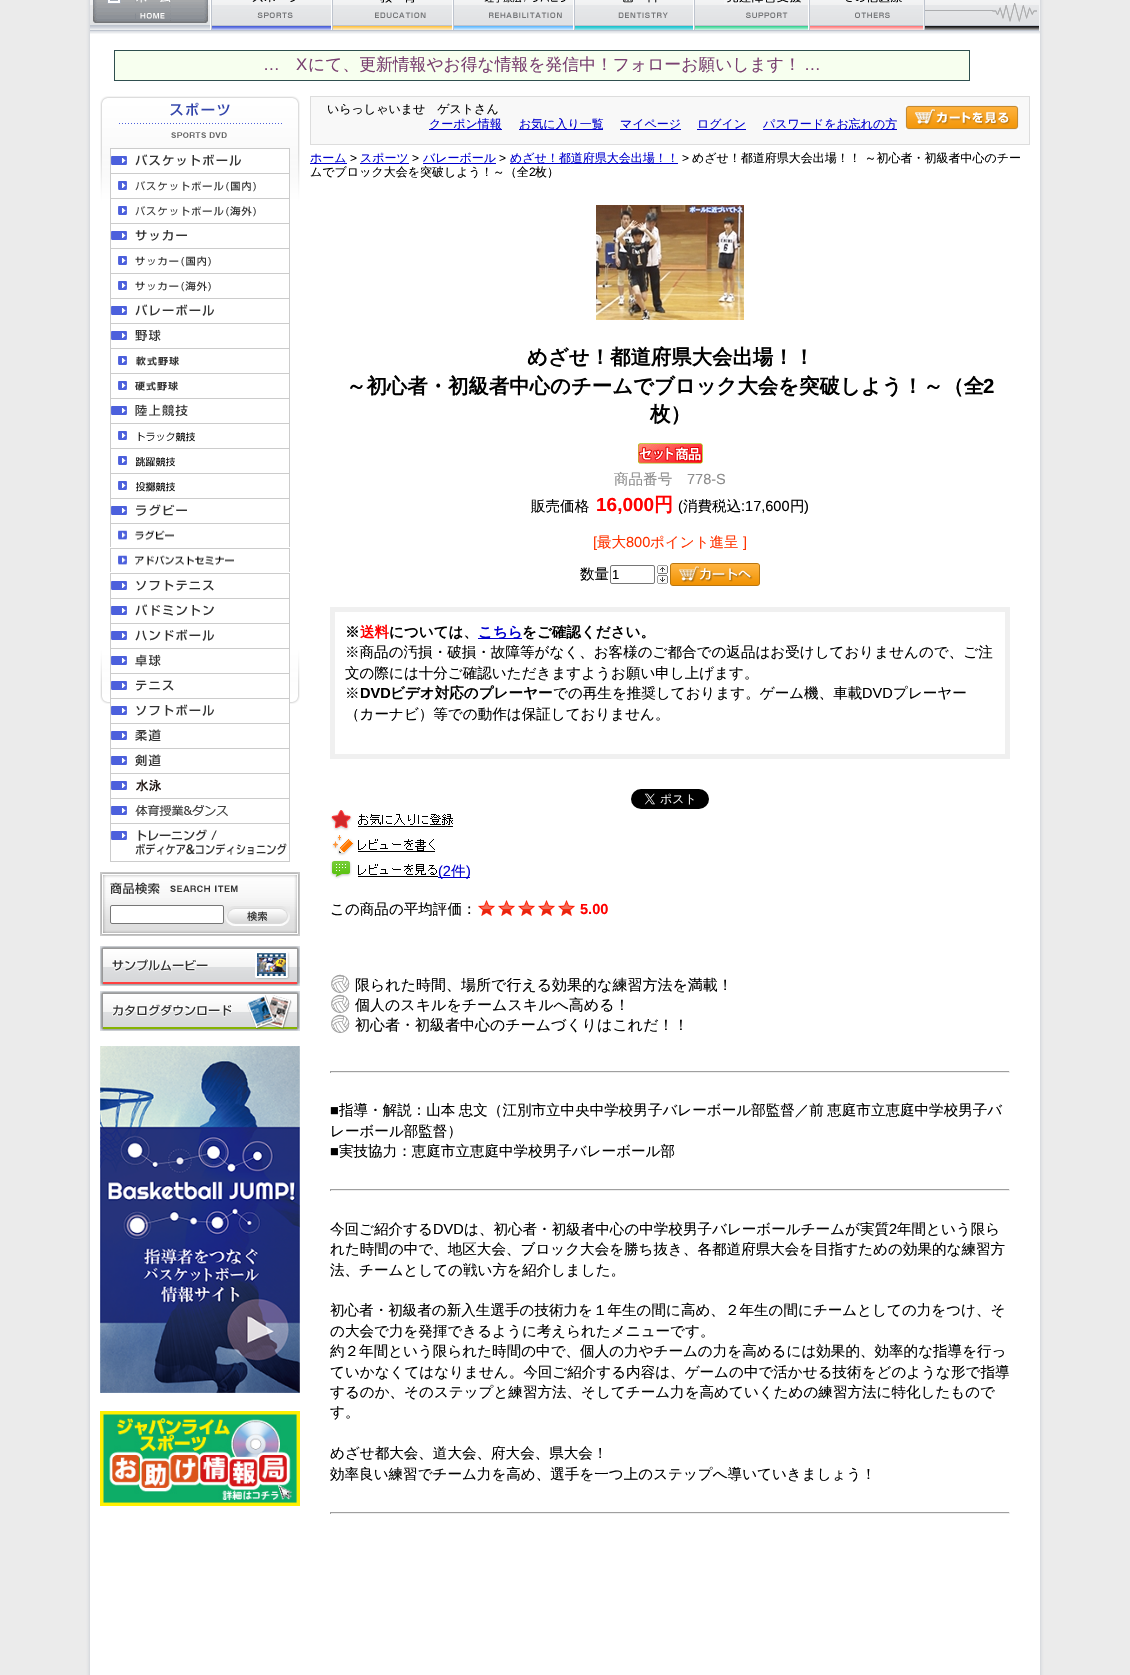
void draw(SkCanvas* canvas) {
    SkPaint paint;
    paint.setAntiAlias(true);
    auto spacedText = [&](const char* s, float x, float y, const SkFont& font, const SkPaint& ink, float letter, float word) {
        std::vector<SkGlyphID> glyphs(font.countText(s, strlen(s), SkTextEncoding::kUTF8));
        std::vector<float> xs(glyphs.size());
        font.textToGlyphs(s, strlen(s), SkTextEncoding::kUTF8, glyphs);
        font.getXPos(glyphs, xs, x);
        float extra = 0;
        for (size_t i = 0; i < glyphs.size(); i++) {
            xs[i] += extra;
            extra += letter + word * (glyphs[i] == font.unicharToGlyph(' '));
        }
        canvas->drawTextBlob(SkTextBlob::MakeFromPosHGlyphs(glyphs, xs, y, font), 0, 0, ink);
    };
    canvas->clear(0xFFEBEBEB);
    canvas->drawImageRect(SkImages::DeferredFromEncodedData(SkData::MakeFromFileName("img1.png")), SkRect::MakeXYWH(85, 0, 960, 1675), SkSamplingOptions());
    canvas->drawImageRect(SkImages::DeferredFromEncodedData(SkData::MakeFromFileName("img2.png")), SkRect::MakeXYWH(212, 0, 828, 33), SkSamplingOptions());
    canvas->drawImageRect(SkImages::DeferredFromEncodedData(SkData::MakeFromFileName("img3.png")), SkRect::MakeXYWH(90, 0, 122, 34), SkSamplingOptions());
    paint.setColor(0xFFF5F6F7);
    canvas->drawRect(SkRect::MakeXYWH(212, 33, 828, 1), paint);
    paint.setColor(0xFFF7FFEF);
    canvas->drawRect(SkRect::MakeXYWH(114.5f, 50.5f, 855, 30), paint);
    paint.setStyle(SkPaint::kStroke_Style);
    paint.setStrokeWidth(1);
    paint.setColor(0xFF2F4F4F);
    canvas->drawRect(SkRect::MakeXYWH(114.5f, 50.5f, 855, 30), paint);
    SkFont font1(fontMgr->matchFamilyStyle("Liberation Sans", SkFontStyle::Normal()), 16.8f);
    font1.setSubpixel(true);
    paint.setStyle(SkPaint::kFill_Style);
    paint.setColor(0xFF7A4171);
    canvas->drawString("…", 263, 70, font1, paint);
    canvas->drawString("X", 296, 70, font1, paint);
    SkFont font2(fontMgr->matchFamilyStyle("WenQuanYi Zen Hei", SkFontStyle(500, SkFontStyle::kNormal_Width, SkFontStyle::kUpright_Slant)), 16.8f);
    font2.setSubpixel(true);
    canvas->drawString("にて、更新情報やお得な情報を発信中！フォローお願いします！", 308, 70, font2, paint);
    canvas->drawString("…", 804, 70, font1, paint);
    canvas->drawImageRect(SkImages::DeferredFromEncodedData(SkData::MakeFromFileName("img4.png")), SkRect::MakeXYWH(100, 96, 200, 608), SkSamplingOptions());
    canvas->drawImageRect(SkImages::DeferredFromEncodedData(SkData::MakeFromFileName("img5.png")), SkRect::MakeXYWH(119, 102, 163, 36), SkSamplingOptions());
    canvas->drawImageRect(SkImages::DeferredFromEncodedData(SkData::MakeFromFileName("img6.png")), SkRect::MakeXYWH(110, 148, 180, 25), SkSamplingOptions());
    canvas->drawImageRect(SkImages::DeferredFromEncodedData(SkData::MakeFromFileName("img7.png")), SkRect::MakeXYWH(110, 173, 180, 25), SkSamplingOptions());
    canvas->drawImageRect(SkImages::DeferredFromEncodedData(SkData::MakeFromFileName("img8.png")), SkRect::MakeXYWH(110, 198, 180, 25), SkSamplingOptions());
    canvas->drawImageRect(SkImages::DeferredFromEncodedData(SkData::MakeFromFileName("img9.png")), SkRect::MakeXYWH(110, 223, 180, 25), SkSamplingOptions());
    canvas->drawImageRect(SkImages::DeferredFromEncodedData(SkData::MakeFromFileName("img10.png")), SkRect::MakeXYWH(110, 248, 180, 25), SkSamplingOptions());
    canvas->drawImageRect(SkImages::DeferredFromEncodedData(SkData::MakeFromFileName("img11.png")), SkRect::MakeXYWH(110, 273, 180, 25), SkSamplingOptions());
    canvas->drawImageRect(SkImages::DeferredFromEncodedData(SkData::MakeFromFileName("img12.png")), SkRect::MakeXYWH(110, 298, 180, 25), SkSamplingOptions());
    canvas->drawImageRect(SkImages::DeferredFromEncodedData(SkData::MakeFromFileName("img13.png")), SkRect::MakeXYWH(110, 323, 180, 25), SkSamplingOptions());
    canvas->drawImageRect(SkImages::DeferredFromEncodedData(SkData::MakeFromFileName("img14.png")), SkRect::MakeXYWH(110, 348, 180, 25), SkSamplingOptions());
    canvas->drawImageRect(SkImages::DeferredFromEncodedData(SkData::MakeFromFileName("img15.png")), SkRect::MakeXYWH(110, 373, 180, 25), SkSamplingOptions());
    canvas->drawImageRect(SkImages::DeferredFromEncodedData(SkData::MakeFromFileName("img16.png")), SkRect::MakeXYWH(110, 398, 180, 25), SkSamplingOptions());
    canvas->drawImageRect(SkImages::DeferredFromEncodedData(SkData::MakeFromFileName("img17.png")), SkRect::MakeXYWH(110, 423, 180, 25), SkSamplingOptions());
    canvas->drawImageRect(SkImages::DeferredFromEncodedData(SkData::MakeFromFileName("img18.png")), SkRect::MakeXYWH(110, 448, 180, 25), SkSamplingOptions());
    canvas->drawImageRect(SkImages::DeferredFromEncodedData(SkData::MakeFromFileName("img19.png")), SkRect::MakeXYWH(110, 473, 180, 25), SkSamplingOptions());
    canvas->drawImageRect(SkImages::DeferredFromEncodedData(SkData::MakeFromFileName("img20.png")), SkRect::MakeXYWH(110, 498, 180, 25), SkSamplingOptions());
    canvas->drawImageRect(SkImages::DeferredFromEncodedData(SkData::MakeFromFileName("img21.png")), SkRect::MakeXYWH(110, 523, 180, 24), SkSamplingOptions());
    canvas->drawImageRect(SkImages::DeferredFromEncodedData(SkData::MakeFromFileName("img22.png")), SkRect::MakeXYWH(110, 548, 180, 24), SkSamplingOptions());
    canvas->drawImageRect(SkImages::DeferredFromEncodedData(SkData::MakeFromFileName("img23.png")), SkRect::MakeXYWH(110, 573, 180, 25), SkSamplingOptions());
    canvas->drawImageRect(SkImages::DeferredFromEncodedData(SkData::MakeFromFileName("img24.png")), SkRect::MakeXYWH(110, 598, 180, 25), SkSamplingOptions());
    canvas->drawImageRect(SkImages::DeferredFromEncodedData(SkData::MakeFromFileName("img25.png")), SkRect::MakeXYWH(110, 623, 180, 25), SkSamplingOptions());
    canvas->drawImageRect(SkImages::DeferredFromEncodedData(SkData::MakeFromFileName("img26.png")), SkRect::MakeXYWH(110, 648, 180, 25), SkSamplingOptions());
    canvas->drawImageRect(SkImages::DeferredFromEncodedData(SkData::MakeFromFileName("img27.png")), SkRect::MakeXYWH(110, 673, 180, 25), SkSamplingOptions());
    canvas->drawImageRect(SkImages::DeferredFromEncodedData(SkData::MakeFromFileName("img28.png")), SkRect::MakeXYWH(110, 698, 180, 25), SkSamplingOptions());
    canvas->drawImageRect(SkImages::DeferredFromEncodedData(SkData::MakeFromFileName("img29.png")), SkRect::MakeXYWH(110, 723, 180, 25), SkSamplingOptions());
    canvas->drawImageRect(SkImages::DeferredFromEncodedData(SkData::MakeFromFileName("img30.png")), SkRect::MakeXYWH(110, 748, 180, 25), SkSamplingOptions());
    canvas->drawImageRect(SkImages::DeferredFromEncodedData(SkData::MakeFromFileName("img31.png")), SkRect::MakeXYWH(110, 773, 180, 25), SkSamplingOptions());
    canvas->drawImageRect(SkImages::DeferredFromEncodedData(SkData::MakeFromFileName("img32.png")), SkRect::MakeXYWH(110, 798, 180, 25), SkSamplingOptions());
    canvas->drawImageRect(SkImages::DeferredFromEncodedData(SkData::MakeFromFileName("img33.png")), SkRect::MakeXYWH(110, 823, 180, 39), SkSamplingOptions());
    canvas->drawImageRect(SkImages::DeferredFromEncodedData(SkData::MakeFromFileName("img34.png")), SkRect::MakeXYWH(100, 872, 200, 64), SkSamplingOptions());
    canvas->drawImageRect(SkImages::DeferredFromEncodedData(SkData::MakeFromFileName("img35.png")), SkRect::MakeXYWH(110, 882, 128, 12), SkSamplingOptions());
    paint.setColor(0xFFFFFFFF);
    canvas->drawRoundRect(SkRect::MakeXYWH(110.5f, 905.5f, 113, 18), 1.5f, 1.5f, paint);
    paint.setStyle(SkPaint::kStroke_Style);
    paint.setColor(0xFF767676);
    canvas->drawRoundRect(SkRect::MakeXYWH(110.5f, 905.5f, 113, 18), 1.5f, 1.5f, paint);
    canvas->drawImageRect(SkImages::DeferredFromEncodedData(SkData::MakeFromFileName("img36.png")), SkRect::MakeXYWH(225, 906, 65, 20), SkSamplingOptions());
    canvas->drawImageRect(SkImages::DeferredFromEncodedData(SkData::MakeFromFileName("img37.png")), SkRect::MakeXYWH(100, 946, 200, 40), SkSamplingOptions());
    canvas->drawImageRect(SkImages::DeferredFromEncodedData(SkData::MakeFromFileName("img38.png")), SkRect::MakeXYWH(100, 991, 200, 40), SkSamplingOptions());
    canvas->drawImageRect(SkImages::DeferredFromEncodedData(SkData::MakeFromFileName("img39.png")), SkRect::MakeXYWH(100, 1046, 200, 347), SkSamplingOptions());
    canvas->drawImageRect(SkImages::DeferredFromEncodedData(SkData::MakeFromFileName("img40.png")), SkRect::MakeXYWH(100, 1411, 200, 95), SkSamplingOptions());
    paint.setStyle(SkPaint::kFill_Style);
    paint.setColor(0xFFF8F8F8);
    canvas->drawRect(SkRect::MakeXYWH(310.5f, 96.5f, 719, 48), paint);
    paint.setStyle(SkPaint::kStroke_Style);
    paint.setColor(0xFFDDDDDD);
    canvas->drawRect(SkRect::MakeXYWH(310.5f, 96.5f, 719, 48), paint);
    SkFont font3(fontMgr->matchFamilyStyle("WenQuanYi Zen Hei", SkFontStyle(500, SkFontStyle::kNormal_Width, SkFontStyle::kUpright_Slant)), 12);
    font3.setSubpixel(true);
    paint.setStyle(SkPaint::kFill_Style);
    paint.setColor(0xFF000000);
    canvas->drawString("いらっしゃいませ　ゲストさん", 327, 113, font3, paint);
    canvas->drawImageRect(SkImages::DeferredFromEncodedData(SkData::MakeFromFileName("img41.png")), SkRect::MakeXYWH(905, 105, 114, 25), SkSamplingOptions());
    paint.setColor(0xFF0000CD);
    canvas->drawRect(SkRect::MakeXYWH(429, 129, 73, 1), paint);
    canvas->drawString("クーポン情報", 429, 128, font3, paint);
    canvas->drawRect(SkRect::MakeXYWH(519, 129, 84, 1), paint);
    canvas->drawString("お気に入り一覧", 519, 128, font3, paint);
    canvas->drawRect(SkRect::MakeXYWH(620, 129, 61, 1), paint);
    canvas->drawString("マイページ", 620, 128, font3, paint);
    canvas->drawRect(SkRect::MakeXYWH(697, 129, 49, 1), paint);
    canvas->drawString("ログイン", 697, 128, font3, paint);
    canvas->drawRect(SkRect::MakeXYWH(763, 129, 134, 1), paint);
    canvas->drawString("パスワードをお忘れの方", 763, 128, font3, paint);
    canvas->drawRect(SkRect::MakeXYWH(310, 163, 37, 1), paint);
    canvas->drawString("ホーム", 310, 162, font3, paint);
    SkFont font4(fontMgr->matchFamilyStyle("Liberation Sans", SkFontStyle::Normal()), 12);
    font4.setSubpixel(true);
    paint.setColor(0xFF000000);
    canvas->drawString(">", 350, 162, font4, paint);
    paint.setColor(0xFF0000CD);
    canvas->drawRect(SkRect::MakeXYWH(360, 163, 49, 1), paint);
    canvas->drawString("スポーツ", 360, 162, font3, paint);
    paint.setColor(0xFF000000);
    canvas->drawString(">", 412, 162, font4, paint);
    paint.setColor(0xFF0000CD);
    canvas->drawRect(SkRect::MakeXYWH(423, 163, 73, 1), paint);
    canvas->drawString("バレーボール", 423, 162, font3, paint);
    paint.setColor(0xFF000000);
    canvas->drawString(">", 499, 162, font4, paint);
    paint.setColor(0xFF0000CD);
    canvas->drawRect(SkRect::MakeXYWH(510, 163, 168, 1), paint);
    canvas->drawString("めざせ！都道府県大会出場！！", 510, 162, font3, paint);
    paint.setColor(0xFF000000);
    canvas->drawString(">", 682, 162, font4, paint);
    canvas->drawString("めざせ！都道府県大会出場！！ ～初心者・初級者中心のチー", 692, 162, font3, paint);
    canvas->drawString("ムでブロック大会を突破しよう！～（全", 310, 176, font3, paint);
    canvas->drawString("2", 529, 176, font4, paint);
    canvas->drawString("枚）", 535, 176, font3, paint);
    canvas->drawImageRect(SkImages::DeferredFromEncodedData(SkData::MakeFromFileName("img42.png")), SkRect::MakeXYWH(596, 205, 148, 115), SkSamplingOptions());
    SkFont font5(fontMgr->matchFamilyStyle("WenQuanYi Zen Hei", SkFontStyle::Bold()), 20.4f);
    font5.setSubpixel(true);
    canvas->drawString("めざせ！都道府県大会出場！！", 527, 364, font5, paint);
    canvas->drawString("～初心者・初級者中心のチームでブロック大会を突破しよう！～（全", 346, 393, font5, paint);
    SkFont font6(fontMgr->matchFamilyStyle("Liberation Sans", SkFontStyle::Bold()), 20.4f);
    font6.setSubpixel(true);
    canvas->drawString("2", 983, 393, font6, paint);
    canvas->drawString("枚）", 650, 421, font5, paint);
    canvas->drawImageRect(SkImages::DeferredFromEncodedData(SkData::MakeFromFileName("img43.png")), SkRect::MakeXYWH(638, 443, 65, 21), SkSamplingOptions());
    SkFont font7(fontMgr->matchFamilyStyle("WenQuanYi Zen Hei", SkFontStyle(500, SkFontStyle::kNormal_Width, SkFontStyle::kUpright_Slant)), 14.55f);
    font7.setSubpixel(true);
    paint.setColor(0xFF8C8C8C);
    canvas->drawString("商品番号", 614, 484, font7, paint);
    SkFont font8(fontMgr->matchFamilyStyle("Liberation Sans", SkFontStyle::Normal()), 14.55f);
    font8.setSubpixel(true);
    canvas->drawString("778-S", 687, 484, font8, paint);
    paint.setColor(0xFF000000);
    canvas->drawString("販売価格", 531, 511, font7, paint);
    SkFont font9(fontMgr->matchFamilyStyle("Liberation Sans", SkFontStyle::Bold()), 19);
    font9.setSubpixel(true);
    paint.setColor(0xFFFF0000);
    canvas->drawString("16,000", 596, 511, font9, paint);
    SkFont font10(fontMgr->matchFamilyStyle("WenQuanYi Zen Hei", SkFontStyle::Bold()), 19);
    font10.setSubpixel(true);
    canvas->drawString("円", 654, 511, font10, paint);
    paint.setColor(0xFF000000);
    canvas->drawString("(", 678, 511, font8, paint);
    canvas->drawString("消費税込", 683, 511, font7, paint);
    canvas->drawString(":17,600", 741, 511, font8, paint);
    canvas->drawString("円", 790, 511, font7, paint);
    canvas->drawString(")", 804, 511, font8, paint);
    paint.setColor(0xFFFF3300);
    canvas->drawString("[", 593, 547, font8, paint);
    canvas->drawString("最大", 597, 547, font7, paint);
    canvas->drawString("800", 626, 547, font8, paint);
    canvas->drawString("ポイント進呈", 650, 547, font7, paint);
    canvas->drawString("]", 743, 547, font8, paint);
    paint.setColor(0xFF000000);
    canvas->drawString("数量", 580, 579, font7, paint);
    paint.setStyle(SkPaint::kStroke_Style);
    paint.setColor(0xFF767676);
    canvas->drawRoundRect(SkRect::MakeXYWH(610.5f, 565.5f, 44, 18), 1.5f, 1.5f, paint);
    SkFont font11(fontMgr->matchFamilyStyle("Liberation Sans", SkFontStyle::Normal()), 13);
    font11.setSubpixel(true);
    paint.setStyle(SkPaint::kFill_Style);
    paint.setColor(0xFF000000);
    canvas->drawString("1", 612, 579, font11, paint);
    canvas->drawImageRect(SkImages::DeferredFromEncodedData(SkData::MakeFromFileName("img44.png")), SkRect::MakeXYWH(657, 565, 11, 9), SkSamplingOptions());
    canvas->drawImageRect(SkImages::DeferredFromEncodedData(SkData::MakeFromFileName("img45.png")), SkRect::MakeXYWH(657, 575, 11, 9), SkSamplingOptions());
    canvas->drawImageRect(SkImages::DeferredFromEncodedData(SkData::MakeFromFileName("img46.png")), SkRect::MakeXYWH(670, 563, 90, 23), SkSamplingOptions());
    paint.setStyle(SkPaint::kStroke_Style);
    paint.setStrokeWidth(5);
    paint.setColor(0xFFF0F0F0);
    canvas->drawRect(SkRect::MakeXYWH(332.5f, 609.5f, 675, 147), paint);
    SkFont font12(fontMgr->matchFamilyStyle("WenQuanYi Zen Hei", SkFontStyle::Bold()), 14.55f);
    font12.setSubpixel(true);
    paint.setStyle(SkPaint::kFill_Style);
    paint.setColor(0xFF000000);
    canvas->drawString("※", 345, 637, font12, paint);
    paint.setColor(0xFFFF0000);
    canvas->drawString("送料", 360, 637, font12, paint);
    paint.setColor(0xFF000000);
    canvas->drawString("については、", 389, 637, font12, paint);
    paint.setColor(0xFF0000CD);
    canvas->drawRect(SkRect::MakeXYWH(478, 638, 44, 1), paint);
    canvas->drawString("こちら", 478, 637, font12, paint);
    paint.setColor(0xFF000000);
    canvas->drawString("をご確認ください。", 522, 637, font12, paint);
    canvas->drawString("※商品の汚損・破損・故障等がなく、お客様のご都合での返品はお受けしておりませんので、ご注", 345, 657, font7, paint);
    canvas->drawString("文の際には十分ご確認いただきますようお願い申し上げます。", 345, 678, font7, paint);
    canvas->drawString("※", 345, 698, font7, paint);
    SkFont font13(fontMgr->matchFamilyStyle("Liberation Sans", SkFontStyle::Bold()), 14.55f);
    font13.setSubpixel(true);
    canvas->drawString("DVD", 360, 698, font13, paint);
    canvas->drawString("ビデオ対応のプレーヤー", 390, 698, font12, paint);
    canvas->drawString("での再生を推奨しております。ゲーム機、車載", 553, 698, font7, paint);
    canvas->drawString("DVD", 862, 698, font8, paint);
    canvas->drawString("プレーヤー", 893, 698, font7, paint);
    canvas->drawString("（カーナビ）等での動作は保証しておりません。", 345, 719, font7, paint);
    canvas->drawImageRect(SkImages::DeferredFromEncodedData(SkData::MakeFromFileName("img47.png")), SkRect::MakeXYWH(631, 789, 78, 20), SkSamplingOptions());
    canvas->drawImageRect(SkImages::DeferredFromEncodedData(SkData::MakeFromFileName("img48.png")), SkRect::MakeXYWH(330, 810, 123, 21), SkSamplingOptions());
    canvas->drawImageRect(SkImages::DeferredFromEncodedData(SkData::MakeFromFileName("img49.png")), SkRect::MakeXYWH(332, 835, 103, 21), SkSamplingOptions());
    canvas->drawImageRect(SkImages::DeferredFromEncodedData(SkData::MakeFromFileName("img50.png")), SkRect::MakeXYWH(330, 860, 108, 19), SkSamplingOptions());
    paint.setColor(0xFF0000CD);
    canvas->drawRect(SkRect::MakeXYWH(438, 877, 32, 1), paint);
    canvas->drawString("(2", 438, 876, font8, paint);
    canvas->drawString("件", 451, 876, font7, paint);
    canvas->drawString(")", 466, 876, font8, paint);
    paint.setColor(0xFF000000);
    canvas->drawString("この商品の平均評価：", 330, 914, font7, paint);
    canvas->drawImageRect(SkImages::DeferredFromEncodedData(SkData::MakeFromFileName("img51.png")), SkRect::MakeXYWH(478, 900, 97, 16), SkSamplingOptions());
    paint.setColor(0xFFFF0000);
    canvas->drawString("5.00", 580, 914, font13, paint);
    canvas->drawImageRect(SkImages::DeferredFromEncodedData(SkData::MakeFromFileName("img52.png")), SkRect::MakeXYWH(331, 974, 19, 19), SkSamplingOptions());
    SkFont font14(fontMgr->matchFamilyStyle("WenQuanYi Zen Hei", SkFontStyle(500, SkFontStyle::kNormal_Width, SkFontStyle::kUpright_Slant)), 15);
    font14.setSubpixel(true);
    paint.setColor(0xFF000000);
    canvas->drawString("限られた時間、場所で行える効果的な練習方法を満載！", 355, 990, font14, paint);
    canvas->drawImageRect(SkImages::DeferredFromEncodedData(SkData::MakeFromFileName("img52.png")), SkRect::MakeXYWH(331, 994, 19, 19), SkSamplingOptions());
    canvas->drawString("個人のスキルをチームスキルへ高める！", 355, 1010, font14, paint);
    canvas->drawImageRect(SkImages::DeferredFromEncodedData(SkData::MakeFromFileName("img52.png")), SkRect::MakeXYWH(331, 1014, 19, 19), SkSamplingOptions());
    canvas->drawString("初心者・初級者中心のチームづくりはこれだ！！", 355, 1030, font14, paint);
    paint.setColor(0xFF9F9F9F);
    canvas->drawRect(SkRect::MakeXYWH(330, 1071, 680, 1), paint);
    paint.setColor(0xFFEEEEEE);
    canvas->drawRect(SkRect::MakeXYWH(1009, 1071, 1, 2), paint);
    canvas->drawRect(SkRect::MakeXYWH(330, 1072, 680, 1), paint);
    paint.setColor(0xFF9F9F9F);
    canvas->drawRect(SkRect::MakeXYWH(330, 1071, 1, 2), paint);
    paint.setColor(0xFF000000);
    canvas->drawString("■", 330, 1115, font8, paint);
    spacedText("指導・解説：山本 忠文（江別市立中央中学校男子バレーボール部監督／前 恵庭市立恵庭中学校男子バ", 339, 1115, font7, paint, 0, -1);
    canvas->drawString("レーボール部監督）", 330, 1136, font7, paint);
    canvas->drawString("■", 330, 1156, font8, paint);
    canvas->drawString("実技協力：恵庭市立恵庭中学校男子バレーボール部", 339, 1156, font7, paint);
    paint.setColor(0xFF9F9F9F);
    canvas->drawRect(SkRect::MakeXYWH(330, 1189, 680, 1), paint);
    paint.setColor(0xFFEEEEEE);
    canvas->drawRect(SkRect::MakeXYWH(1009, 1189, 1, 2), paint);
    canvas->drawRect(SkRect::MakeXYWH(330, 1190, 680, 1), paint);
    paint.setColor(0xFF9F9F9F);
    canvas->drawRect(SkRect::MakeXYWH(330, 1189, 1, 2), paint);
    paint.setColor(0xFF000000);
    canvas->drawString("今回ご紹介する", 330, 1234, font7, paint);
    canvas->drawString("DVD", 433, 1234, font8, paint);
    canvas->drawString("は、初心者・初級者中心の中学校男子バレーボールチームが実質", 464, 1234, font7, paint);
    canvas->drawString("2", 889, 1234, font8, paint);
    canvas->drawString("年間という限ら", 897, 1234, font7, paint);
    canvas->drawString("れた時間の中で、地区大会、ブロック大会を勝ち抜き、各都道府県大会を目指すための効果的な練習方", 330, 1254, font7, paint);
    canvas->drawString("法、チームとしての戦い方を紹介しました。", 330, 1275, font7, paint);
    canvas->drawString("初心者・初級者の新入生選手の技術力を１年生の間に高め、２年生の間にチームとしての力をつけ、そ", 330, 1315, font7, paint);
    canvas->drawString("の大会で力を発揮できるように考えられたメニューです。", 330, 1336, font7, paint);
    canvas->drawString("約２年間という限られた時間の中で、個人の力やチームの力を高めるには効果的、効率的な指導を行っ", 330, 1356, font7, paint);
    canvas->drawString("ていかなくてはなりません。今回ご紹介する内容は、ゲームの中で活かせる技術をどのような形で指導", 330, 1377, font7, paint);
    canvas->drawString("するのか、そのステップと練習方法、そしてチーム力を高めていくための練習方法に特化したもので", 330, 1397, font7, paint);
    canvas->drawString("す。", 330, 1417, font7, paint);
    canvas->drawString("めざせ都大会、道大会、府大会、県大会！", 330, 1458, font7, paint);
    canvas->drawString("効率良い練習でチーム力を高め、選手を一つ上のステップへ導いていきましょう！", 330, 1479, font7, paint);
    paint.setColor(0xFF9F9F9F);
    canvas->drawRect(SkRect::MakeXYWH(330, 1512, 680, 1), paint);
    paint.setColor(0xFFEEEEEE);
    canvas->drawRect(SkRect::MakeXYWH(1009, 1512, 1, 2), paint);
    canvas->drawRect(SkRect::MakeXYWH(330, 1513, 680, 1), paint);
    paint.setColor(0xFF9F9F9F);
    canvas->drawRect(SkRect::MakeXYWH(330, 1512, 1, 2), paint);
}
